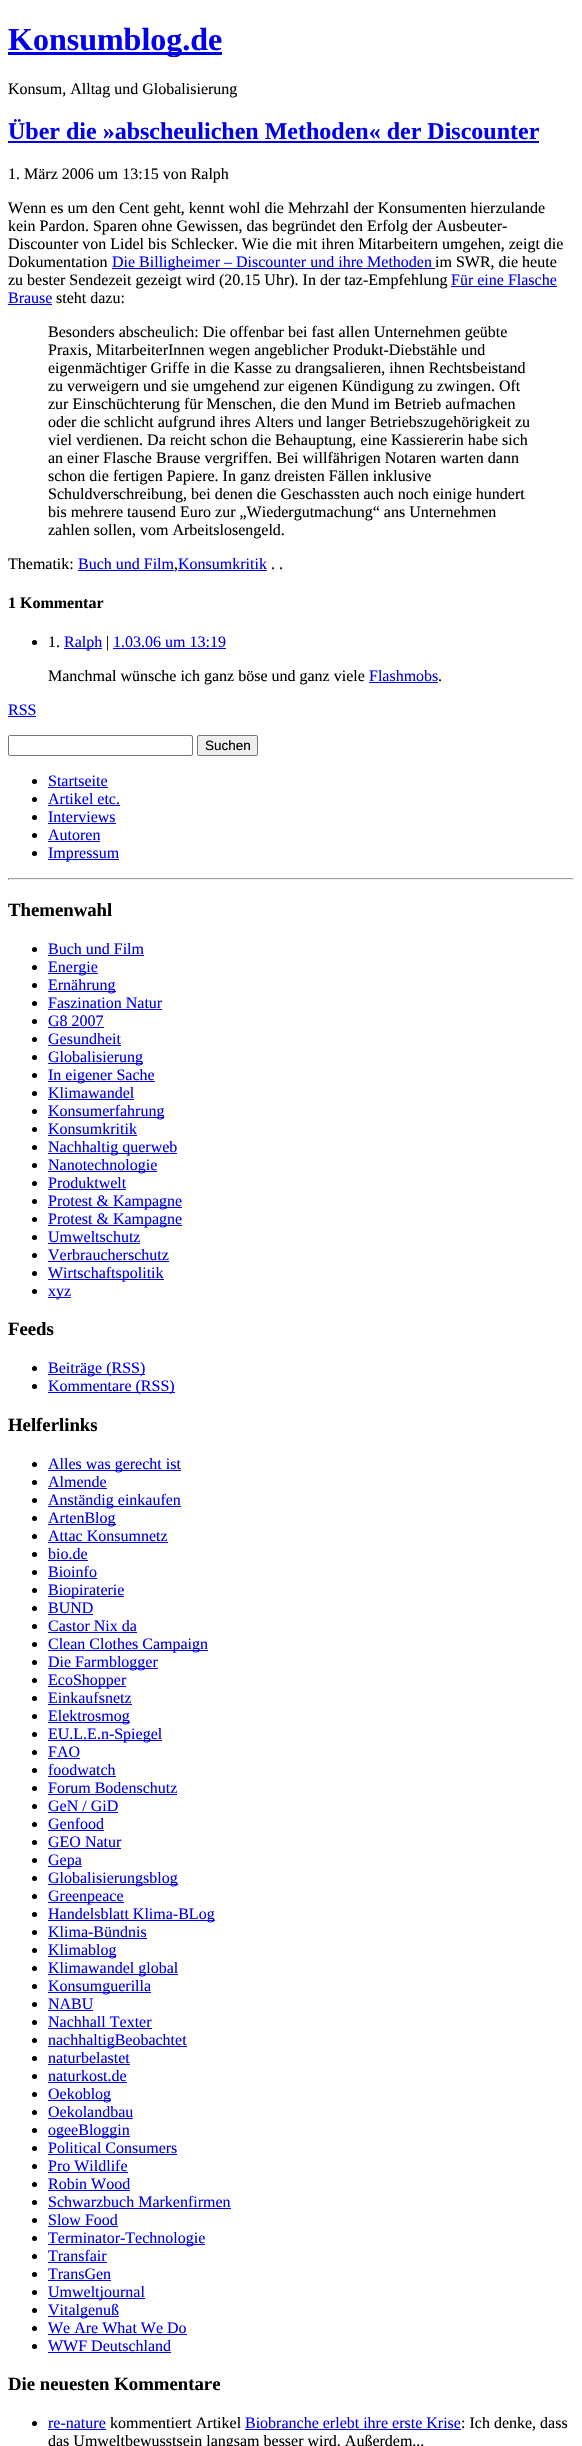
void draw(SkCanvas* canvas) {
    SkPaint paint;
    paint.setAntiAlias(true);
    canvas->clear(0xFFFFFFFF);
    paint.setColor(0xFF0000EE);
    canvas->drawRect(SkRect::MakeXYWH(8, 52, 214, 3), paint);
    SkFont font1(fontMgr->matchFamilyStyle("Liberation Serif", SkFontStyle::Bold()), 32);
    font1.setSubpixel(true);
    canvas->drawString("Konsumblog.de", 8, 50, font1, paint);
    SkFont font2(fontMgr->matchFamilyStyle("Liberation Serif", SkFontStyle::Normal()), 16);
    font2.setSubpixel(true);
    paint.setColor(0xFF000000);
    canvas->drawString("Konsum, Alltag und Globalisierung", 8, 94, font2, paint);
    SkFont font3(fontMgr->matchFamilyStyle("Liberation Serif", SkFontStyle::Bold()), 24);
    font3.setSubpixel(true);
    paint.setColor(0xFF0000EE);
    canvas->drawString("Über die »abscheulichen Methoden« der Discounter", 8, 139, font3, paint);
    canvas->drawRect(SkRect::MakeXYWH(8, 141, 531, 2), paint);
    paint.setColor(0xFF000000);
    canvas->drawString("1. März 2006 um 13:15 von Ralph", 8, 179, font2, paint);
    canvas->drawString("Wenn es um den Cent geht, kennt wohl die Mehrzahl der Konsumenten hierzulande", 8, 213, font2, paint);
    canvas->drawString("kein Pardon. Sparen ohne Gewissen, das begründet den Erfolg der Ausbeuter-", 8, 231, font2, paint);
    canvas->drawString("Discounter von Lidel bis Schlecker. Wie die mit ihren Mitarbeitern umgehen, zeigt die", 8, 249, font2, paint);
    canvas->drawString("Dokumentation", 8, 267, font2, paint);
    paint.setColor(0xFF0000EE);
    canvas->drawRect(SkRect::MakeXYWH(112, 268, 323, 1), paint);
    canvas->drawString("Die Billigheimer – Discounter und ihre Methoden", 112, 267, font2, paint);
    paint.setColor(0xFF000000);
    canvas->drawString("im SWR, die heute", 435, 267, font2, paint);
    canvas->drawString("zu bester Sendezeit gezeigt wird (20.15 Uhr). In der taz-Empfehlung", 8, 285, font2, paint);
    paint.setColor(0xFF0000EE);
    canvas->drawString("Für eine Flasche", 451, 285, font2, paint);
    canvas->drawRect(SkRect::MakeXYWH(451, 286, 106, 1), paint);
    canvas->drawString("Brause", 8, 303, font2, paint);
    canvas->drawRect(SkRect::MakeXYWH(8, 304, 44, 1), paint);
    paint.setColor(0xFF000000);
    canvas->drawString("steht dazu:", 56, 303, font2, paint);
    canvas->drawString("Besonders abscheulich: Die offenbar bei fast allen Unternehmen geübte", 48, 337, font2, paint);
    canvas->drawString("Praxis, MitarbeiterInnen wegen angeblicher Produkt-Diebstähle und", 48, 355, font2, paint);
    canvas->drawString("eigenmächtiger Griffe in die Kasse zu drangsalieren, ihnen Rechtsbeistand", 48, 373, font2, paint);
    canvas->drawString("zu verweigern und sie umgehend zur eigenen Kündigung zu zwingen. Oft", 48, 391, font2, paint);
    canvas->drawString("zur Einschüchterung für Menschen, die den Mund im Betrieb aufmachen", 48, 409, font2, paint);
    canvas->drawString("oder die schlicht aufgrund ihres Alters und langer Betriebszugehörigkeit zu", 48, 427, font2, paint);
    canvas->drawString("viel verdienen. Da reicht schon die Behauptung, eine Kassiererin habe sich", 48, 445, font2, paint);
    canvas->drawString("an einer Flasche Brause vergriffen. Bei willfährigen Notaren warten dann", 48, 463, font2, paint);
    canvas->drawString("schon die fertigen Papiere. In ganz dreisten Fällen inklusive", 48, 481, font2, paint);
    canvas->drawString("Schuldverschreibung, bei denen die Geschassten auch noch einige hundert", 48, 499, font2, paint);
    canvas->drawString("bis mehrere tausend Euro zur „Wiedergutmachung“ ans Unternehmen", 48, 517, font2, paint);
    canvas->drawString("zahlen sollen, vom Arbeitslosengeld.", 48, 535, font2, paint);
    canvas->drawString("Thematik:", 8, 569, font2, paint);
    paint.setColor(0xFF0000EE);
    canvas->drawString("Buch und Film Konsumkritik", 78, 569, font2, paint);
    canvas->drawRect(SkRect::MakeXYWH(78, 570, 96, 1), paint);
    paint.setColor(0xFF000000);
    canvas->drawString(",", 174, 569, font2, paint);
    canvas->drawString(". .", 271, 569, font2, paint);
    paint.setColor(0xFF0000EE);
    canvas->drawRect(SkRect::MakeXYWH(178, 570, 89, 1), paint);
    SkFont font4(fontMgr->matchFamilyStyle("Liberation Serif", SkFontStyle::Bold()), 16);
    font4.setSubpixel(true);
    paint.setColor(0xFF000000);
    canvas->drawString("1 Kommentar", 8, 608, font4, paint);
    canvas->drawCircle(34.5f, 642.5f, 2.5f, paint);
    canvas->drawString("1.", 48, 647, font2, paint);
    paint.setColor(0xFF0000EE);
    canvas->drawRect(SkRect::MakeXYWH(64, 648, 38, 1), paint);
    canvas->drawString("Ralph", 64, 647, font2, paint);
    paint.setColor(0xFF000000);
    canvas->drawString("|", 106, 647, font2, paint);
    paint.setColor(0xFF0000EE);
    canvas->drawString("1.03.06 um 13:19", 113, 647, font2, paint);
    canvas->drawRect(SkRect::MakeXYWH(113, 648, 113, 1), paint);
    paint.setColor(0xFF000000);
    canvas->drawString("Manchmal wünsche ich ganz böse und ganz viele", 48, 681, font2, paint);
    paint.setColor(0xFF0000EE);
    canvas->drawString("Flashmobs", 369, 681, font2, paint);
    canvas->drawRect(SkRect::MakeXYWH(369, 682, 69, 1), paint);
    paint.setColor(0xFF000000);
    canvas->drawString(".", 438, 681, font2, paint);
    paint.setColor(0xFF0000EE);
    canvas->drawString("RSS", 8, 715, font2, paint);
    canvas->drawRect(SkRect::MakeXYWH(8, 716, 28, 1), paint);
    paint.setStyle(SkPaint::kStroke_Style);
    paint.setStrokeWidth(1);
    paint.setColor(0xFF767676);
    canvas->drawRoundRect(SkRect::MakeXYWH(8.5f, 735.5f, 184, 20), 1.5f, 1.5f, paint);
    paint.setStyle(SkPaint::kFill_Style);
    paint.setColor(0xFFEFEFEF);
    canvas->drawRoundRect(SkRect::MakeXYWH(197.5f, 735.5f, 60, 20), 1.5f, 1.5f, paint);
    paint.setStyle(SkPaint::kStroke_Style);
    paint.setColor(0xFF767676);
    canvas->drawRoundRect(SkRect::MakeXYWH(197.5f, 735.5f, 60, 20), 1.5f, 1.5f, paint);
    SkFont font5(fontMgr->matchFamilyStyle("Liberation Sans", SkFontStyle::Normal()), 13.5f);
    font5.setSubpixel(true);
    paint.setStyle(SkPaint::kFill_Style);
    paint.setColor(0xFF000000);
    canvas->drawString("Suchen", 205, 750, font5, paint);
    canvas->drawCircle(34.5f, 781.5f, 2.5f, paint);
    paint.setColor(0xFF0000EE);
    canvas->drawString("Startseite", 48, 786, font2, paint);
    canvas->drawRect(SkRect::MakeXYWH(48, 787, 60, 1), paint);
    paint.setColor(0xFF000000);
    canvas->drawCircle(34.5f, 799.5f, 2.5f, paint);
    paint.setColor(0xFF0000EE);
    canvas->drawString("Artikel etc.", 48, 804, font2, paint);
    canvas->drawRect(SkRect::MakeXYWH(48, 805, 72, 1), paint);
    paint.setColor(0xFF000000);
    canvas->drawCircle(34.5f, 817.5f, 2.5f, paint);
    paint.setColor(0xFF0000EE);
    canvas->drawString("Interviews", 48, 822, font2, paint);
    canvas->drawRect(SkRect::MakeXYWH(48, 823, 68, 1), paint);
    paint.setColor(0xFF000000);
    canvas->drawCircle(34.5f, 835.5f, 2.5f, paint);
    paint.setColor(0xFF0000EE);
    canvas->drawString("Autoren", 48, 840, font2, paint);
    canvas->drawRect(SkRect::MakeXYWH(48, 841, 52, 1), paint);
    paint.setColor(0xFF000000);
    canvas->drawCircle(34.5f, 853.5f, 2.5f, paint);
    paint.setColor(0xFF0000EE);
    canvas->drawRect(SkRect::MakeXYWH(48, 859, 71, 1), paint);
    canvas->drawString("Impressum", 48, 858, font2, paint);
    paint.setColor(0xFF9F9F9F);
    canvas->drawRect(SkRect::MakeXYWH(8, 878, 566, 1), paint);
    paint.setColor(0xFFEEEEEE);
    canvas->drawRect(SkRect::MakeXYWH(573, 878, 1, 2), paint);
    canvas->drawRect(SkRect::MakeXYWH(8, 879, 566, 1), paint);
    paint.setColor(0xFF9F9F9F);
    canvas->drawRect(SkRect::MakeXYWH(8, 878, 1, 2), paint);
    SkFont font6(fontMgr->matchFamilyStyle("Liberation Serif", SkFontStyle::Bold()), 18.75f);
    font6.setSubpixel(true);
    paint.setColor(0xFF000000);
    canvas->drawString("Themenwahl", 8, 916, font6, paint);
    canvas->drawCircle(34.5f, 949.5f, 2.5f, paint);
    paint.setColor(0xFF0000EE);
    canvas->drawString("Buch und Film", 48, 954, font2, paint);
    canvas->drawRect(SkRect::MakeXYWH(48, 955, 96, 1), paint);
    paint.setColor(0xFF000000);
    canvas->drawCircle(34.5f, 967.5f, 2.5f, paint);
    paint.setColor(0xFF0000EE);
    canvas->drawRect(SkRect::MakeXYWH(48, 973, 50, 1), paint);
    canvas->drawString("Energie", 48, 972, font2, paint);
    paint.setColor(0xFF000000);
    canvas->drawCircle(34.5f, 985.5f, 2.5f, paint);
    paint.setColor(0xFF0000EE);
    canvas->drawRect(SkRect::MakeXYWH(48, 991, 68, 1), paint);
    canvas->drawString("Ernährung", 48, 990, font2, paint);
    paint.setColor(0xFF000000);
    canvas->drawCircle(34.5f, 1003.5f, 2.5f, paint);
    paint.setColor(0xFF0000EE);
    canvas->drawString("Faszination Natur", 48, 1008, font2, paint);
    canvas->drawRect(SkRect::MakeXYWH(48, 1009, 114, 1), paint);
    paint.setColor(0xFF000000);
    canvas->drawCircle(34.5f, 1021.5f, 2.5f, paint);
    paint.setColor(0xFF0000EE);
    canvas->drawString("G8 2007", 48, 1026, font2, paint);
    canvas->drawRect(SkRect::MakeXYWH(48, 1027, 56, 1), paint);
    paint.setColor(0xFF000000);
    canvas->drawCircle(34.5f, 1039.5f, 2.5f, paint);
    paint.setColor(0xFF0000EE);
    canvas->drawString("Gesundheit", 48, 1044, font2, paint);
    canvas->drawRect(SkRect::MakeXYWH(48, 1045, 73, 1), paint);
    paint.setColor(0xFF000000);
    canvas->drawCircle(34.5f, 1057.5f, 2.5f, paint);
    paint.setColor(0xFF0000EE);
    canvas->drawRect(SkRect::MakeXYWH(48, 1063, 95, 1), paint);
    canvas->drawString("Globalisierung", 48, 1062, font2, paint);
    paint.setColor(0xFF000000);
    canvas->drawCircle(34.5f, 1075.5f, 2.5f, paint);
    paint.setColor(0xFF0000EE);
    canvas->drawRect(SkRect::MakeXYWH(48, 1081, 107, 1), paint);
    canvas->drawString("In eigener Sache", 48, 1080, font2, paint);
    paint.setColor(0xFF000000);
    canvas->drawCircle(34.5f, 1093.5f, 2.5f, paint);
    paint.setColor(0xFF0000EE);
    canvas->drawString("Klimawandel", 48, 1098, font2, paint);
    canvas->drawRect(SkRect::MakeXYWH(48, 1099, 86, 1), paint);
    paint.setColor(0xFF000000);
    canvas->drawCircle(34.5f, 1111.5f, 2.5f, paint);
    paint.setColor(0xFF0000EE);
    canvas->drawRect(SkRect::MakeXYWH(48, 1117, 116, 1), paint);
    canvas->drawString("Konsumerfahrung", 48, 1116, font2, paint);
    paint.setColor(0xFF000000);
    canvas->drawCircle(34.5f, 1129.5f, 2.5f, paint);
    paint.setColor(0xFF0000EE);
    canvas->drawString("Konsumkritik", 48, 1134, font2, paint);
    canvas->drawRect(SkRect::MakeXYWH(48, 1135, 89, 1), paint);
    paint.setColor(0xFF000000);
    canvas->drawCircle(34.5f, 1147.5f, 2.5f, paint);
    paint.setColor(0xFF0000EE);
    canvas->drawRect(SkRect::MakeXYWH(48, 1153, 129, 1), paint);
    canvas->drawString("Nachhaltig querweb", 48, 1152, font2, paint);
    paint.setColor(0xFF000000);
    canvas->drawCircle(34.5f, 1165.5f, 2.5f, paint);
    paint.setColor(0xFF0000EE);
    canvas->drawRect(SkRect::MakeXYWH(48, 1171, 109, 1), paint);
    canvas->drawString("Nanotechnologie", 48, 1170, font2, paint);
    paint.setColor(0xFF000000);
    canvas->drawCircle(34.5f, 1183.5f, 2.5f, paint);
    paint.setColor(0xFF0000EE);
    canvas->drawString("Produktwelt", 48, 1188, font2, paint);
    canvas->drawRect(SkRect::MakeXYWH(48, 1189, 78, 1), paint);
    paint.setColor(0xFF000000);
    canvas->drawCircle(34.5f, 1201.5f, 2.5f, paint);
    paint.setColor(0xFF0000EE);
    canvas->drawRect(SkRect::MakeXYWH(48, 1207, 134, 1), paint);
    canvas->drawString("Protest & Kampagne", 48, 1206, font2, paint);
    paint.setColor(0xFF000000);
    canvas->drawCircle(34.5f, 1219.5f, 2.5f, paint);
    paint.setColor(0xFF0000EE);
    canvas->drawRect(SkRect::MakeXYWH(48, 1225, 134, 1), paint);
    canvas->drawString("Protest & Kampagne", 48, 1224, font2, paint);
    paint.setColor(0xFF000000);
    canvas->drawCircle(34.5f, 1237.5f, 2.5f, paint);
    paint.setColor(0xFF0000EE);
    canvas->drawString("Umweltschutz", 48, 1242, font2, paint);
    canvas->drawRect(SkRect::MakeXYWH(48, 1243, 92, 1), paint);
    paint.setColor(0xFF000000);
    canvas->drawCircle(34.5f, 1255.5f, 2.5f, paint);
    paint.setColor(0xFF0000EE);
    canvas->drawString("Verbraucherschutz", 48, 1260, font2, paint);
    canvas->drawRect(SkRect::MakeXYWH(48, 1261, 121, 1), paint);
    paint.setColor(0xFF000000);
    canvas->drawCircle(34.5f, 1273.5f, 2.5f, paint);
    paint.setColor(0xFF0000EE);
    canvas->drawRect(SkRect::MakeXYWH(48, 1279, 116, 1), paint);
    canvas->drawString("Wirtschaftspolitik", 48, 1278, font2, paint);
    paint.setColor(0xFF000000);
    canvas->drawCircle(34.5f, 1291.5f, 2.5f, paint);
    paint.setColor(0xFF0000EE);
    canvas->drawRect(SkRect::MakeXYWH(48, 1297, 23, 1), paint);
    canvas->drawString("xyz", 48, 1296, font2, paint);
    paint.setColor(0xFF000000);
    canvas->drawString("Feeds", 8, 1335, font6, paint);
    canvas->drawCircle(34.5f, 1368.5f, 2.5f, paint);
    paint.setColor(0xFF0000EE);
    canvas->drawRect(SkRect::MakeXYWH(48, 1374, 97, 1), paint);
    canvas->drawString("Beiträge (RSS)", 48, 1373, font2, paint);
    paint.setColor(0xFF000000);
    canvas->drawCircle(34.5f, 1386.5f, 2.5f, paint);
    paint.setColor(0xFF0000EE);
    canvas->drawRect(SkRect::MakeXYWH(48, 1392, 127, 1), paint);
    canvas->drawString("Kommentare (RSS)", 48, 1391, font2, paint);
    paint.setColor(0xFF000000);
    canvas->drawString("Helferlinks", 8, 1431, font6, paint);
    canvas->drawCircle(34.5f, 1464.5f, 2.5f, paint);
    paint.setColor(0xFF0000EE);
    canvas->drawRect(SkRect::MakeXYWH(48, 1470, 133, 1), paint);
    canvas->drawString("Alles was gerecht ist", 48, 1469, font2, paint);
    paint.setColor(0xFF000000);
    canvas->drawCircle(34.5f, 1482.5f, 2.5f, paint);
    paint.setColor(0xFF0000EE);
    canvas->drawString("Almende", 48, 1487, font2, paint);
    canvas->drawRect(SkRect::MakeXYWH(48, 1488, 59, 1), paint);
    paint.setColor(0xFF000000);
    canvas->drawCircle(34.5f, 1500.5f, 2.5f, paint);
    paint.setColor(0xFF0000EE);
    canvas->drawRect(SkRect::MakeXYWH(48, 1506, 133, 1), paint);
    canvas->drawString("Anständig einkaufen", 48, 1505, font2, paint);
    paint.setColor(0xFF000000);
    canvas->drawCircle(34.5f, 1518.5f, 2.5f, paint);
    paint.setColor(0xFF0000EE);
    canvas->drawRect(SkRect::MakeXYWH(48, 1524, 68, 1), paint);
    canvas->drawString("ArtenBlog", 48, 1523, font2, paint);
    paint.setColor(0xFF000000);
    canvas->drawCircle(34.5f, 1536.5f, 2.5f, paint);
    paint.setColor(0xFF0000EE);
    canvas->drawString("Attac Konsumnetz", 48, 1541, font2, paint);
    canvas->drawRect(SkRect::MakeXYWH(48, 1542, 120, 1), paint);
    paint.setColor(0xFF000000);
    canvas->drawCircle(34.5f, 1554.5f, 2.5f, paint);
    paint.setColor(0xFF0000EE);
    canvas->drawString("bio.de", 48, 1559, font2, paint);
    canvas->drawRect(SkRect::MakeXYWH(48, 1560, 40, 1), paint);
    paint.setColor(0xFF000000);
    canvas->drawCircle(34.5f, 1572.5f, 2.5f, paint);
    paint.setColor(0xFF0000EE);
    canvas->drawString("Bioinfo", 48, 1577, font2, paint);
    canvas->drawRect(SkRect::MakeXYWH(48, 1578, 49, 1), paint);
    paint.setColor(0xFF000000);
    canvas->drawCircle(34.5f, 1590.5f, 2.5f, paint);
    paint.setColor(0xFF0000EE);
    canvas->drawRect(SkRect::MakeXYWH(48, 1596, 76, 1), paint);
    canvas->drawString("Biopiraterie", 48, 1595, font2, paint);
    paint.setColor(0xFF000000);
    canvas->drawCircle(34.5f, 1608.5f, 2.5f, paint);
    paint.setColor(0xFF0000EE);
    canvas->drawString("BUND", 48, 1613, font2, paint);
    canvas->drawRect(SkRect::MakeXYWH(48, 1614, 45, 1), paint);
    paint.setColor(0xFF000000);
    canvas->drawCircle(34.5f, 1626.5f, 2.5f, paint);
    paint.setColor(0xFF0000EE);
    canvas->drawString("Castor Nix da", 48, 1631, font2, paint);
    canvas->drawRect(SkRect::MakeXYWH(48, 1632, 89, 1), paint);
    paint.setColor(0xFF000000);
    canvas->drawCircle(34.5f, 1644.5f, 2.5f, paint);
    paint.setColor(0xFF0000EE);
    canvas->drawRect(SkRect::MakeXYWH(48, 1650, 160, 1), paint);
    canvas->drawString("Clean Clothes Campaign", 48, 1649, font2, paint);
    paint.setColor(0xFF000000);
    canvas->drawCircle(34.5f, 1662.5f, 2.5f, paint);
    paint.setColor(0xFF0000EE);
    canvas->drawRect(SkRect::MakeXYWH(48, 1668, 110, 1), paint);
    canvas->drawString("Die Farmblogger", 48, 1667, font2, paint);
    paint.setColor(0xFF000000);
    canvas->drawCircle(34.5f, 1680.5f, 2.5f, paint);
    paint.setColor(0xFF0000EE);
    canvas->drawRect(SkRect::MakeXYWH(48, 1686, 78, 1), paint);
    canvas->drawString("EcoShopper", 48, 1685, font2, paint);
    paint.setColor(0xFF000000);
    canvas->drawCircle(34.5f, 1698.5f, 2.5f, paint);
    paint.setColor(0xFF0000EE);
    canvas->drawString("Einkaufsnetz", 48, 1703, font2, paint);
    canvas->drawRect(SkRect::MakeXYWH(48, 1704, 84, 1), paint);
    paint.setColor(0xFF000000);
    canvas->drawCircle(34.5f, 1716.5f, 2.5f, paint);
    paint.setColor(0xFF0000EE);
    canvas->drawRect(SkRect::MakeXYWH(48, 1722, 82, 1), paint);
    canvas->drawString("Elektrosmog", 48, 1721, font2, paint);
    paint.setColor(0xFF000000);
    canvas->drawCircle(34.5f, 1734.5f, 2.5f, paint);
    paint.setColor(0xFF0000EE);
    canvas->drawRect(SkRect::MakeXYWH(48, 1740, 114, 1), paint);
    canvas->drawString("EU.L.E.n-Spiegel", 48, 1739, font2, paint);
    paint.setColor(0xFF000000);
    canvas->drawCircle(34.5f, 1752.5f, 2.5f, paint);
    paint.setColor(0xFF0000EE);
    canvas->drawString("FAO", 48, 1757, font2, paint);
    canvas->drawRect(SkRect::MakeXYWH(48, 1758, 32, 1), paint);
    paint.setColor(0xFF000000);
    canvas->drawCircle(34.5f, 1770.5f, 2.5f, paint);
    paint.setColor(0xFF0000EE);
    canvas->drawString("foodwatch", 48, 1775, font2, paint);
    canvas->drawRect(SkRect::MakeXYWH(48, 1776, 68, 1), paint);
    paint.setColor(0xFF000000);
    canvas->drawCircle(34.5f, 1788.5f, 2.5f, paint);
    paint.setColor(0xFF0000EE);
    canvas->drawString("Forum Bodenschutz", 48, 1793, font2, paint);
    canvas->drawRect(SkRect::MakeXYWH(48, 1794, 129, 1), paint);
    paint.setColor(0xFF000000);
    canvas->drawCircle(34.5f, 1806.5f, 2.5f, paint);
    paint.setColor(0xFF0000EE);
    canvas->drawString("GeN / GiD", 48, 1811, font2, paint);
    canvas->drawRect(SkRect::MakeXYWH(48, 1812, 70, 1), paint);
    paint.setColor(0xFF000000);
    canvas->drawCircle(34.5f, 1824.5f, 2.5f, paint);
    paint.setColor(0xFF0000EE);
    canvas->drawString("Genfood", 48, 1829, font2, paint);
    canvas->drawRect(SkRect::MakeXYWH(48, 1830, 56, 1), paint);
    paint.setColor(0xFF000000);
    canvas->drawCircle(34.5f, 1842.5f, 2.5f, paint);
    paint.setColor(0xFF0000EE);
    canvas->drawString("GEO Natur", 48, 1847, font2, paint);
    canvas->drawRect(SkRect::MakeXYWH(48, 1848, 73, 1), paint);
    paint.setColor(0xFF000000);
    canvas->drawCircle(34.5f, 1860.5f, 2.5f, paint);
    paint.setColor(0xFF0000EE);
    canvas->drawRect(SkRect::MakeXYWH(48, 1866, 34, 1), paint);
    canvas->drawString("Gepa", 48, 1865, font2, paint);
    paint.setColor(0xFF000000);
    canvas->drawCircle(34.5f, 1878.5f, 2.5f, paint);
    paint.setColor(0xFF0000EE);
    canvas->drawRect(SkRect::MakeXYWH(48, 1884, 130, 1), paint);
    canvas->drawString("Globalisierungsblog", 48, 1883, font2, paint);
    paint.setColor(0xFF000000);
    canvas->drawCircle(34.5f, 1896.5f, 2.5f, paint);
    paint.setColor(0xFF0000EE);
    canvas->drawRect(SkRect::MakeXYWH(48, 1902, 76, 1), paint);
    canvas->drawString("Greenpeace", 48, 1901, font2, paint);
    paint.setColor(0xFF000000);
    canvas->drawCircle(34.5f, 1914.5f, 2.5f, paint);
    paint.setColor(0xFF0000EE);
    canvas->drawRect(SkRect::MakeXYWH(48, 1920, 167, 1), paint);
    canvas->drawString("Handelsblatt Klima-BLog", 48, 1919, font2, paint);
    paint.setColor(0xFF000000);
    canvas->drawCircle(34.5f, 1932.5f, 2.5f, paint);
    paint.setColor(0xFF0000EE);
    canvas->drawString("Klima-Bündnis", 48, 1937, font2, paint);
    canvas->drawRect(SkRect::MakeXYWH(48, 1938, 99, 1), paint);
    paint.setColor(0xFF000000);
    canvas->drawCircle(34.5f, 1950.5f, 2.5f, paint);
    paint.setColor(0xFF0000EE);
    canvas->drawRect(SkRect::MakeXYWH(48, 1956, 68, 1), paint);
    canvas->drawString("Klimablog", 48, 1955, font2, paint);
    paint.setColor(0xFF000000);
    canvas->drawCircle(34.5f, 1968.5f, 2.5f, paint);
    paint.setColor(0xFF0000EE);
    canvas->drawRect(SkRect::MakeXYWH(48, 1974, 130, 1), paint);
    canvas->drawString("Klimawandel global", 48, 1973, font2, paint);
    paint.setColor(0xFF000000);
    canvas->drawCircle(34.5f, 1986.5f, 2.5f, paint);
    paint.setColor(0xFF0000EE);
    canvas->drawRect(SkRect::MakeXYWH(48, 1992, 103, 1), paint);
    canvas->drawString("Konsumguerilla", 48, 1991, font2, paint);
    paint.setColor(0xFF000000);
    canvas->drawCircle(34.5f, 2004.5f, 2.5f, paint);
    paint.setColor(0xFF0000EE);
    canvas->drawString("NABU", 48, 2009, font2, paint);
    canvas->drawRect(SkRect::MakeXYWH(48, 2010, 45, 1), paint);
    paint.setColor(0xFF000000);
    canvas->drawCircle(34.5f, 2022.5f, 2.5f, paint);
    paint.setColor(0xFF0000EE);
    canvas->drawString("Nachhall Texter", 48, 2027, font2, paint);
    canvas->drawRect(SkRect::MakeXYWH(48, 2028, 104, 1), paint);
    paint.setColor(0xFF000000);
    canvas->drawCircle(34.5f, 2040.5f, 2.5f, paint);
    paint.setColor(0xFF0000EE);
    canvas->drawRect(SkRect::MakeXYWH(48, 2046, 139, 1), paint);
    canvas->drawString("nachhaltigBeobachtet", 48, 2045, font2, paint);
    paint.setColor(0xFF000000);
    canvas->drawCircle(34.5f, 2058.5f, 2.5f, paint);
    paint.setColor(0xFF0000EE);
    canvas->drawString("naturbelastet", 48, 2063, font2, paint);
    canvas->drawRect(SkRect::MakeXYWH(48, 2064, 82, 1), paint);
    paint.setColor(0xFF000000);
    canvas->drawCircle(34.5f, 2076.5f, 2.5f, paint);
    paint.setColor(0xFF0000EE);
    canvas->drawString("naturkost.de", 48, 2081, font2, paint);
    canvas->drawRect(SkRect::MakeXYWH(48, 2082, 79, 1), paint);
    paint.setColor(0xFF000000);
    canvas->drawCircle(34.5f, 2094.5f, 2.5f, paint);
    paint.setColor(0xFF0000EE);
    canvas->drawRect(SkRect::MakeXYWH(48, 2100, 63, 1), paint);
    canvas->drawString("Oekoblog", 48, 2099, font2, paint);
    paint.setColor(0xFF000000);
    canvas->drawCircle(34.5f, 2112.5f, 2.5f, paint);
    paint.setColor(0xFF0000EE);
    canvas->drawString("Oekolandbau", 48, 2117, font2, paint);
    canvas->drawRect(SkRect::MakeXYWH(48, 2118, 85, 1), paint);
    paint.setColor(0xFF000000);
    canvas->drawCircle(34.5f, 2130.5f, 2.5f, paint);
    paint.setColor(0xFF0000EE);
    canvas->drawRect(SkRect::MakeXYWH(48, 2136, 82, 1), paint);
    canvas->drawString("ogeeBloggin", 48, 2135, font2, paint);
    paint.setColor(0xFF000000);
    canvas->drawCircle(34.5f, 2148.5f, 2.5f, paint);
    paint.setColor(0xFF0000EE);
    canvas->drawString("Political Consumers", 48, 2153, font2, paint);
    canvas->drawRect(SkRect::MakeXYWH(48, 2154, 129, 1), paint);
    paint.setColor(0xFF000000);
    canvas->drawCircle(34.5f, 2166.5f, 2.5f, paint);
    paint.setColor(0xFF0000EE);
    canvas->drawString("Pro Wildlife", 48, 2171, font2, paint);
    canvas->drawRect(SkRect::MakeXYWH(48, 2172, 80, 1), paint);
    paint.setColor(0xFF000000);
    canvas->drawCircle(34.5f, 2184.5f, 2.5f, paint);
    paint.setColor(0xFF0000EE);
    canvas->drawString("Robin Wood", 48, 2189, font2, paint);
    canvas->drawRect(SkRect::MakeXYWH(48, 2190, 82, 1), paint);
    paint.setColor(0xFF000000);
    canvas->drawCircle(34.5f, 2202.5f, 2.5f, paint);
    paint.setColor(0xFF0000EE);
    canvas->drawString("Schwarzbuch Markenfirmen", 48, 2207, font2, paint);
    canvas->drawRect(SkRect::MakeXYWH(48, 2208, 183, 1), paint);
    paint.setColor(0xFF000000);
    canvas->drawCircle(34.5f, 2220.5f, 2.5f, paint);
    paint.setColor(0xFF0000EE);
    canvas->drawString("Slow Food", 48, 2225, font2, paint);
    canvas->drawRect(SkRect::MakeXYWH(48, 2226, 70, 1), paint);
    paint.setColor(0xFF000000);
    canvas->drawCircle(34.5f, 2238.5f, 2.5f, paint);
    paint.setColor(0xFF0000EE);
    canvas->drawRect(SkRect::MakeXYWH(48, 2244, 157, 1), paint);
    canvas->drawString("Terminator-Technologie", 48, 2243, font2, paint);
    paint.setColor(0xFF000000);
    canvas->drawCircle(34.5f, 2256.5f, 2.5f, paint);
    paint.setColor(0xFF0000EE);
    canvas->drawString("Transfair", 48, 2261, font2, paint);
    canvas->drawRect(SkRect::MakeXYWH(48, 2262, 59, 1), paint);
    paint.setColor(0xFF000000);
    canvas->drawCircle(34.5f, 2274.5f, 2.5f, paint);
    paint.setColor(0xFF0000EE);
    canvas->drawString("TransGen", 48, 2279, font2, paint);
    canvas->drawRect(SkRect::MakeXYWH(48, 2280, 63, 1), paint);
    paint.setColor(0xFF000000);
    canvas->drawCircle(34.5f, 2292.5f, 2.5f, paint);
    paint.setColor(0xFF0000EE);
    canvas->drawRect(SkRect::MakeXYWH(48, 2298, 97, 1), paint);
    canvas->drawString("Umweltjournal", 48, 2297, font2, paint);
    paint.setColor(0xFF000000);
    canvas->drawCircle(34.5f, 2310.5f, 2.5f, paint);
    paint.setColor(0xFF0000EE);
    canvas->drawRect(SkRect::MakeXYWH(48, 2316, 71, 1), paint);
    canvas->drawString("Vitalgenuß", 48, 2315, font2, paint);
    paint.setColor(0xFF000000);
    canvas->drawCircle(34.5f, 2328.5f, 2.5f, paint);
    paint.setColor(0xFF0000EE);
    canvas->drawString("We Are What We Do", 48, 2333, font2, paint);
    canvas->drawRect(SkRect::MakeXYWH(48, 2334, 139, 1), paint);
    paint.setColor(0xFF000000);
    canvas->drawCircle(34.5f, 2346.5f, 2.5f, paint);
    paint.setColor(0xFF0000EE);
    canvas->drawString("WWF Deutschland", 48, 2351, font2, paint);
    canvas->drawRect(SkRect::MakeXYWH(48, 2352, 123, 1), paint);
    paint.setColor(0xFF000000);
    canvas->drawString("Die neuesten Kommentare", 8, 2390, font6, paint);
    canvas->drawCircle(34.5f, 2423.5f, 2.5f, paint);
    paint.setColor(0xFF0000EE);
    canvas->drawString("re-nature", 48, 2428, font2, paint);
    canvas->drawRect(SkRect::MakeXYWH(48, 2429, 58, 1), paint);
    paint.setColor(0xFF000000);
    canvas->drawString("kommentiert Artikel", 110, 2428, font2, paint);
    paint.setColor(0xFF0000EE);
    canvas->drawString("Biobranche erlebt ihre erste Krise", 245, 2428, font2, paint);
    canvas->drawRect(SkRect::MakeXYWH(245, 2429, 216, 1), paint);
    paint.setColor(0xFF000000);
    canvas->drawString(": Ich denke, dass", 461, 2428, font2, paint);
    canvas->drawString("das Umweltbewusstsein langsam besser wird. Außerdem...", 48, 2446, font2, paint);
}
